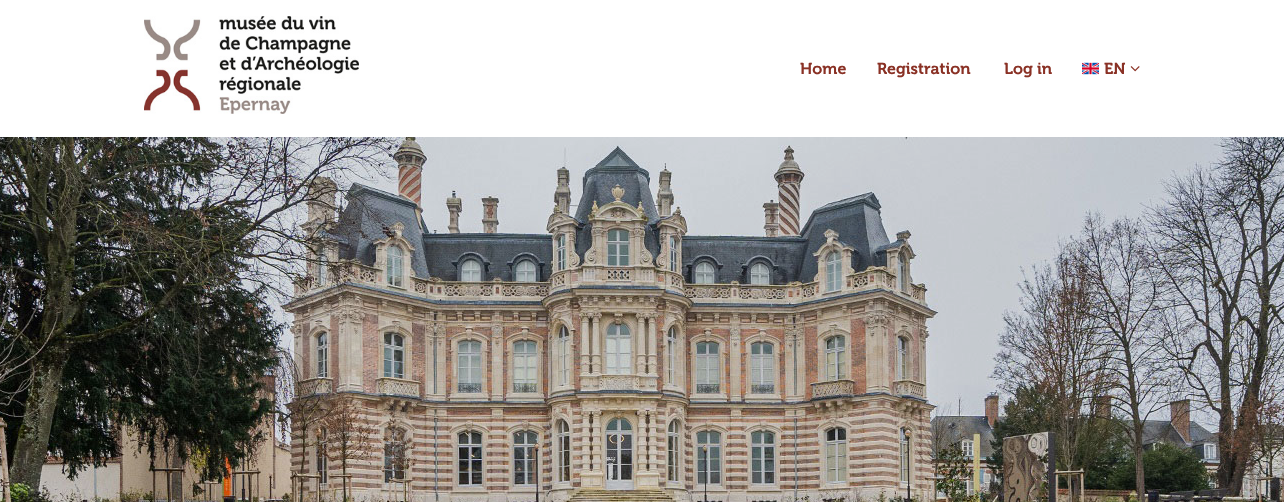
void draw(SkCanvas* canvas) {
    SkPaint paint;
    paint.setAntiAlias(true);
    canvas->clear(0xFFFFFFFF);
    canvas->drawImageRect(SkImages::DeferredFromEncodedData(SkData::MakeFromFileName("img1.png")), SkRect::MakeXYWH(144, 16, 215, 98), SkSamplingOptions());
    SkFont font1(fontMgr->matchFamilyStyle("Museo", SkFontStyle(600, SkFontStyle::kNormal_Width, SkFontStyle::kUpright_Slant)), 16);
    font1.setSubpixel(true);
    paint.setColor(0xFF8A3125);
    canvas->drawString("Home", 800, 74, font1, paint);
    canvas->drawString("Registration", 877, 74, font1, paint);
    canvas->drawString("Log in", 1004, 74, font1, paint);
    canvas->drawImageRect(SkImages::DeferredFromEncodedData(SkData::MakeFromFileName("img2.png")), SkRect::MakeXYWH(1082, 62, 17, 13), SkSamplingOptions());
    canvas->drawString("EN", 1104, 74, font1, paint);
    canvas->drawImageRect(SkImages::DeferredFromEncodedData(SkData::MakeFromFileName("img3.png")), SkRect::MakeXYWH(1130, 66, 10, 6), SkSamplingOptions());
    canvas->drawImageRect(SkImages::DeferredFromEncodedData(SkData::MakeFromFileName("img4.png")), SkRect::MakeXYWH(0, 137, 1284, 365), SkSamplingOptions());
}
